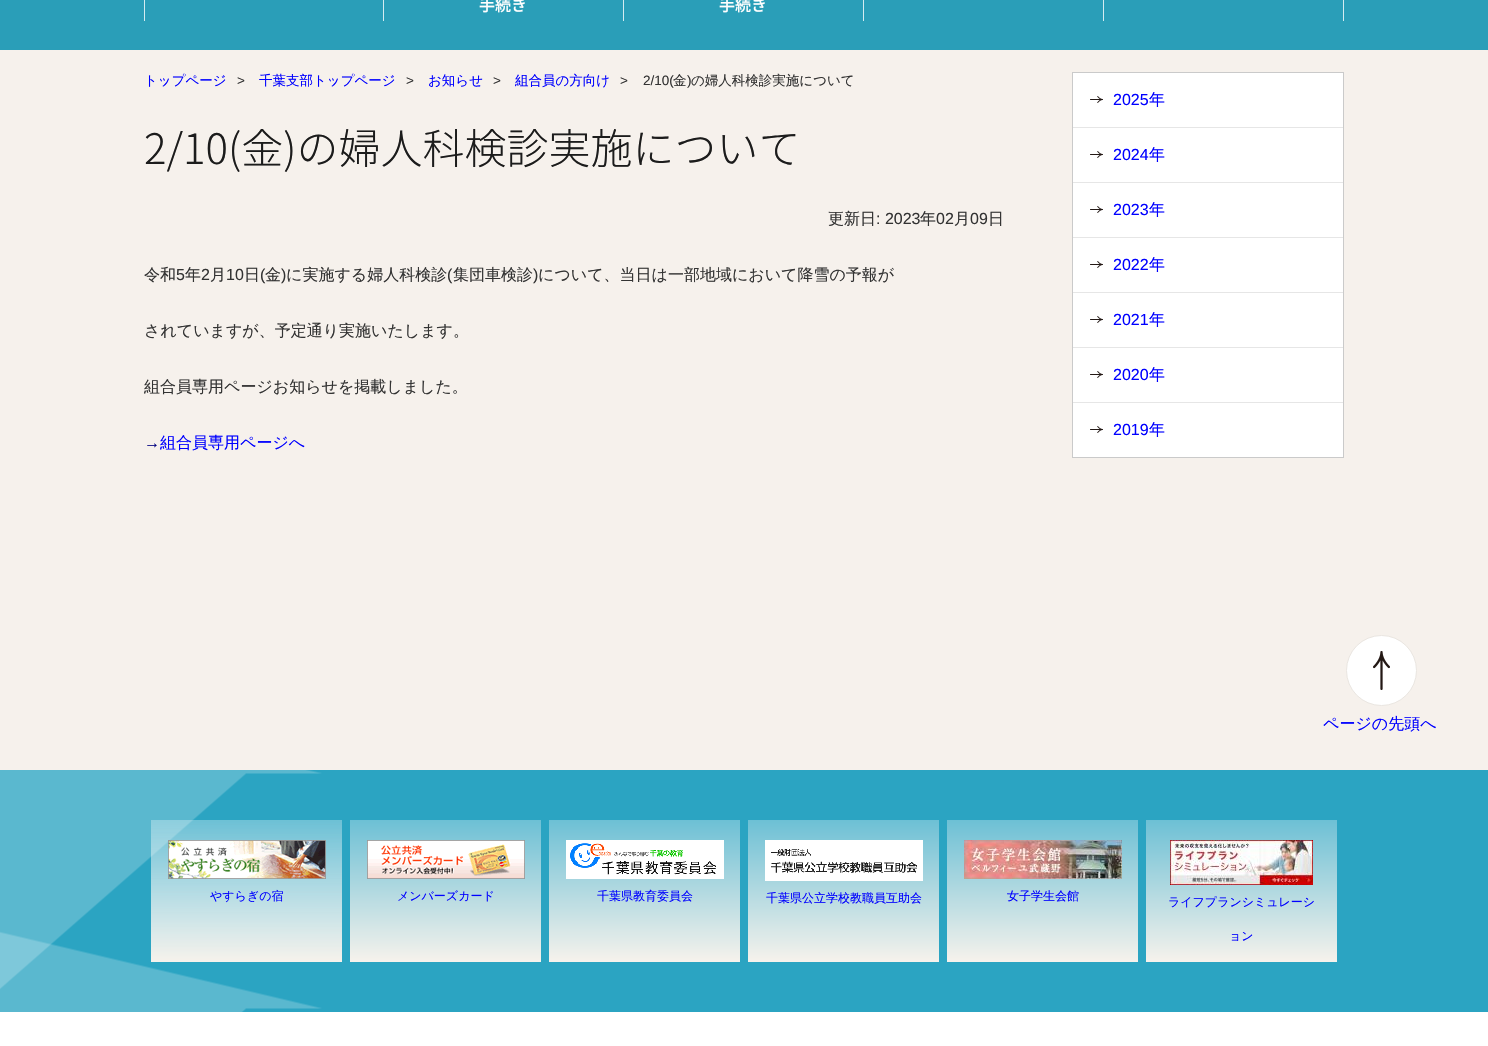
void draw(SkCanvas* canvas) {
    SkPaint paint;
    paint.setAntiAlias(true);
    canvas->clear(0xFFF6F1EC);
    paint.setColor(0xFF2A9EB8);
    canvas->drawRect(SkRect::MakeXYWH(0, 0, 1488, 50), paint);
    paint.setColor(0xFFD4ECF1);
    canvas->drawRect(SkRect::MakeXYWH(383, 0, 1, 21), paint);
    canvas->drawRect(SkRect::MakeXYWH(144, 0, 1, 21), paint);
    canvas->drawRect(SkRect::MakeXYWH(623, 0, 1, 21), paint);
    SkFont font1(fontMgr->matchFamilyStyle("Noto Sans JP", SkFontStyle(500, SkFontStyle::kNormal_Width, SkFontStyle::kUpright_Slant)), 16);
    font1.setSubpixel(true);
    paint.setColor(0xFFFFFFFF);
    canvas->drawString("手続き", 479, 11, font1, paint);
    paint.setColor(0xFFD4ECF1);
    canvas->drawRect(SkRect::MakeXYWH(863, 0, 1, 21), paint);
    paint.setColor(0xFFFFFFFF);
    canvas->drawString("手続き", 719, 11, font1, paint);
    paint.setColor(0xFFD4ECF1);
    canvas->drawRect(SkRect::MakeXYWH(1103, 0, 1, 21), paint);
    canvas->drawRect(SkRect::MakeXYWH(1343, 0, 1, 21), paint);
    SkFont font2(fontMgr->matchFamilyStyle("WenQuanYi Zen Hei", SkFontStyle(500, SkFontStyle::kNormal_Width, SkFontStyle::kUpright_Slant)), 13.5f);
    font2.setSubpixel(true);
    paint.setColor(0xFF0000FF);
    canvas->drawString("トップページ", 144, 85, font2, paint);
    SkFont font3(fontMgr->matchFamilyStyle("Liberation Sans", SkFontStyle::Normal()), 13.5f);
    font3.setSubpixel(true);
    paint.setColor(0xFF333333);
    canvas->drawString(">", 237, 85, font3, paint);
    paint.setColor(0xFF0000FF);
    canvas->drawString("千葉支部トップページ", 259, 85, font2, paint);
    paint.setColor(0xFF333333);
    canvas->drawString(">", 406, 85, font3, paint);
    paint.setColor(0xFF0000FF);
    canvas->drawString("お知らせ", 428, 85, font2, paint);
    paint.setColor(0xFF333333);
    canvas->drawString(">", 493, 85, font3, paint);
    paint.setColor(0xFF0000FF);
    canvas->drawString("組合員の方向け", 515, 85, font2, paint);
    paint.setColor(0xFF333333);
    canvas->drawString(">", 620, 85, font3, paint);
    canvas->drawString("2/10(", 643, 85, font3, paint);
    canvas->drawString("金", 673, 85, font2, paint);
    canvas->drawString(")", 687, 85, font3, paint);
    canvas->drawString("の婦人科検診実施について", 691, 85, font2, paint);
    SkFont font4(fontMgr->matchFamilyStyle("Noto Sans JP", SkFontStyle(300, SkFontStyle::kNormal_Width, SkFontStyle::kUpright_Slant)), 42);
    font4.setSubpixel(true);
    paint.setColor(0xFF1C1C1C);
    canvas->drawString("2/10(金)の婦人科検診実施について", 144, 164, font4, paint);
    SkFont font5(fontMgr->matchFamilyStyle("WenQuanYi Zen Hei", SkFontStyle(500, SkFontStyle::kNormal_Width, SkFontStyle::kUpright_Slant)), 16);
    font5.setSubpixel(true);
    paint.setColor(0xFF333333);
    canvas->drawString("更新日", 828, 224, font5, paint);
    SkFont font6(fontMgr->matchFamilyStyle("Liberation Sans", SkFontStyle::Normal()), 16);
    font6.setSubpixel(true);
    canvas->drawString(": 2023", 876, 224, font6, paint);
    canvas->drawString("年", 920, 224, font5, paint);
    canvas->drawString("02", 936, 224, font6, paint);
    canvas->drawString("月", 954, 224, font5, paint);
    canvas->drawString("09", 970, 224, font6, paint);
    canvas->drawString("日", 988, 224, font5, paint);
    canvas->drawString("令和", 144, 280, font5, paint);
    canvas->drawString("5", 176, 280, font6, paint);
    canvas->drawString("年", 185, 280, font5, paint);
    canvas->drawString("2", 201, 280, font6, paint);
    canvas->drawString("月", 210, 280, font5, paint);
    canvas->drawString("10", 226, 280, font6, paint);
    canvas->drawString("日", 244, 280, font5, paint);
    canvas->drawString("(", 260, 280, font6, paint);
    canvas->drawString("金", 265, 280, font5, paint);
    canvas->drawString(")", 281, 280, font6, paint);
    canvas->drawString("に実施する婦人科検診", 286, 280, font5, paint);
    canvas->drawString("(", 447, 280, font6, paint);
    canvas->drawString("集団車検診", 453, 280, font5, paint);
    canvas->drawString(")", 533, 280, font6, paint);
    canvas->drawString("について、当日は一部地域において降雪の予報が", 538, 280, font5, paint);
    canvas->drawString("されていますが、予定通り実施いたします。", 144, 336, font5, paint);
    canvas->drawString("組合員専用ページお知らせを掲載しました。", 144, 392, font5, paint);
    paint.setColor(0xFF000080);
    canvas->drawString("→", 144, 448, font6, paint);
    paint.setColor(0xFF0000FF);
    canvas->drawString("組合員専用ページへ", 160, 448, font5, paint);
    paint.setColor(0xFFFFFFFF);
    canvas->drawRect(SkRect::MakeXYWH(1072.5f, 72.5f, 271, 385), paint);
    paint.setStyle(SkPaint::kStroke_Style);
    paint.setStrokeWidth(1);
    paint.setColor(0xFFCACACA);
    canvas->drawRect(SkRect::MakeXYWH(1072.5f, 72.5f, 271, 385), paint);
    canvas->drawImageRect(SkImages::DeferredFromEncodedData(SkData::MakeFromFileName("img1.png")), SkRect::MakeXYWH(1090, 96, 13, 7), SkSamplingOptions());
    paint.setStyle(SkPaint::kFill_Style);
    paint.setColor(0xFF0000FF);
    canvas->drawString("2025", 1113, 105, font6, paint);
    canvas->drawString("年", 1149, 105, font5, paint);
    paint.setColor(0xFFE6E6E6);
    canvas->drawRect(SkRect::MakeXYWH(1073, 127, 270, 1), paint);
    canvas->drawImageRect(SkImages::DeferredFromEncodedData(SkData::MakeFromFileName("img1.png")), SkRect::MakeXYWH(1090, 151, 13, 7), SkSamplingOptions());
    paint.setColor(0xFF0000FF);
    canvas->drawString("2024", 1113, 160, font6, paint);
    canvas->drawString("年", 1149, 160, font5, paint);
    paint.setColor(0xFFE6E6E6);
    canvas->drawRect(SkRect::MakeXYWH(1073, 182, 270, 1), paint);
    canvas->drawImageRect(SkImages::DeferredFromEncodedData(SkData::MakeFromFileName("img1.png")), SkRect::MakeXYWH(1090, 206, 13, 7), SkSamplingOptions());
    paint.setColor(0xFF0000FF);
    canvas->drawString("2023", 1113, 215, font6, paint);
    canvas->drawString("年", 1149, 215, font5, paint);
    paint.setColor(0xFFE6E6E6);
    canvas->drawRect(SkRect::MakeXYWH(1073, 237, 270, 1), paint);
    canvas->drawImageRect(SkImages::DeferredFromEncodedData(SkData::MakeFromFileName("img1.png")), SkRect::MakeXYWH(1090, 261, 13, 7), SkSamplingOptions());
    paint.setColor(0xFF0000FF);
    canvas->drawString("2022", 1113, 270, font6, paint);
    canvas->drawString("年", 1149, 270, font5, paint);
    paint.setColor(0xFFE6E6E6);
    canvas->drawRect(SkRect::MakeXYWH(1073, 292, 270, 1), paint);
    canvas->drawImageRect(SkImages::DeferredFromEncodedData(SkData::MakeFromFileName("img1.png")), SkRect::MakeXYWH(1090, 316, 13, 7), SkSamplingOptions());
    paint.setColor(0xFF0000FF);
    canvas->drawString("2021", 1113, 325, font6, paint);
    canvas->drawString("年", 1149, 325, font5, paint);
    paint.setColor(0xFFE6E6E6);
    canvas->drawRect(SkRect::MakeXYWH(1073, 347, 270, 1), paint);
    canvas->drawImageRect(SkImages::DeferredFromEncodedData(SkData::MakeFromFileName("img1.png")), SkRect::MakeXYWH(1090, 371, 13, 7), SkSamplingOptions());
    paint.setColor(0xFF0000FF);
    canvas->drawString("2020", 1113, 380, font6, paint);
    canvas->drawString("年", 1149, 380, font5, paint);
    paint.setColor(0xFFE6E6E6);
    canvas->drawRect(SkRect::MakeXYWH(1073, 402, 270, 1), paint);
    canvas->drawImageRect(SkImages::DeferredFromEncodedData(SkData::MakeFromFileName("img1.png")), SkRect::MakeXYWH(1090, 426, 13, 7), SkSamplingOptions());
    paint.setColor(0xFF0000FF);
    canvas->drawString("2019", 1113, 435, font6, paint);
    canvas->drawString("年", 1149, 435, font5, paint);
    paint.setColor(0xFFFFFFFF);
    canvas->drawCircle(1381.5f, 670.5f, 35, paint);
    paint.setStyle(SkPaint::kStroke_Style);
    paint.setColor(0xFFEAE6E1);
    canvas->drawCircle(1381.5f, 670.5f, 35, paint);
    canvas->drawImageRect(SkImages::DeferredFromEncodedData(SkData::MakeFromFileName("img2.png")), SkRect::MakeXYWH(1373, 651, 17, 39), SkSamplingOptions());
    paint.setStyle(SkPaint::kFill_Style);
    paint.setColor(0xFF0000FF);
    canvas->drawString("ページの先頭へ", 1323, 729, font5, paint);
    canvas->drawImageRect(SkImages::DeferredFromEncodedData(SkData::MakeFromFileName("img3.png")), SkRect::MakeXYWH(0, 770, 1488, 242), SkSamplingOptions());
    canvas->drawImageRect(SkImages::DeferredFromEncodedData(SkData::MakeFromFileName("img4.png")), SkRect::MakeXYWH(168, 840, 158, 39), SkSamplingOptions());
    SkFont font7(fontMgr->matchFamilyStyle("WenQuanYi Zen Hei", SkFontStyle(500, SkFontStyle::kNormal_Width, SkFontStyle::kUpright_Slant)), 12);
    font7.setSubpixel(true);
    canvas->drawString("やすらぎの宿", 210, 900, font7, paint);
    {
        const SkColor colors[] = {0xFF6DC0D5, 0xFFF6F2EC};
        const float stops[] = {0, 1};
        const SkPoint ends[] = {{446, 820}, {446, 962}};
        paint.setShader(SkGradientShader::MakeLinear(ends, colors, stops, 2, SkTileMode::kClamp));
        paint.setAlpha(255);
    }
    canvas->drawRect(SkRect::MakeXYWH(350, 820, 191, 142), paint);
    canvas->drawImageRect(SkImages::DeferredFromEncodedData(SkData::MakeFromFileName("img5.png")), SkRect::MakeXYWH(367, 840, 158, 39), SkSamplingOptions());
    paint.setShader(nullptr);
    paint.setColor(0xFF0000FF);
    canvas->drawString("メンバーズカード", 397, 900, font7, paint);
    {
        const SkColor colors[] = {0xFF6DC0D5, 0xFFF6F2EC};
        const float stops[] = {0, 1};
        const SkPoint ends[] = {{645, 820}, {645, 962}};
        paint.setShader(SkGradientShader::MakeLinear(ends, colors, stops, 2, SkTileMode::kClamp));
        paint.setAlpha(255);
    }
    canvas->drawRect(SkRect::MakeXYWH(549, 820, 191, 142), paint);
    canvas->drawImageRect(SkImages::DeferredFromEncodedData(SkData::MakeFromFileName("img6.png")), SkRect::MakeXYWH(566, 840, 158, 39), SkSamplingOptions());
    paint.setShader(nullptr);
    paint.setColor(0xFF0000FF);
    canvas->drawString("千葉県教育委員会", 597, 900, font7, paint);
    {
        const SkColor colors[] = {0xFF6DC0D5, 0xFFF6F2EC};
        const float stops[] = {0, 1};
        const SkPoint ends[] = {{844, 820}, {844, 962}};
        paint.setShader(SkGradientShader::MakeLinear(ends, colors, stops, 2, SkTileMode::kClamp));
        paint.setAlpha(255);
    }
    canvas->drawRect(SkRect::MakeXYWH(748, 820, 191, 142), paint);
    canvas->drawImageRect(SkImages::DeferredFromEncodedData(SkData::MakeFromFileName("img7.png")), SkRect::MakeXYWH(765, 840, 158, 41), SkSamplingOptions());
    paint.setShader(nullptr);
    paint.setColor(0xFF0000FF);
    canvas->drawString("千葉県公立学校教職員互助会", 766, 902, font7, paint);
    {
        const SkColor colors[] = {0xFF6DC0D5, 0xFFF6F2EC};
        const float stops[] = {0, 1};
        const SkPoint ends[] = {{1043, 820}, {1043, 962}};
        paint.setShader(SkGradientShader::MakeLinear(ends, colors, stops, 2, SkTileMode::kClamp));
        paint.setAlpha(255);
    }
    canvas->drawRect(SkRect::MakeXYWH(947, 820, 191, 142), paint);
    canvas->drawImageRect(SkImages::DeferredFromEncodedData(SkData::MakeFromFileName("img8.png")), SkRect::MakeXYWH(964, 840, 158, 39), SkSamplingOptions());
    paint.setShader(nullptr);
    paint.setColor(0xFF0000FF);
    canvas->drawString("女子学生会館", 1007, 900, font7, paint);
    {
        const SkColor colors[] = {0xFF6DC0D5, 0xFFF6F2EC};
        const float stops[] = {0, 1};
        const SkPoint ends[] = {{1242, 820}, {1242, 962}};
        paint.setShader(SkGradientShader::MakeLinear(ends, colors, stops, 2, SkTileMode::kClamp));
        paint.setAlpha(255);
    }
    canvas->drawRect(SkRect::MakeXYWH(1146, 820, 191, 142), paint);
    canvas->drawImageRect(SkImages::DeferredFromEncodedData(SkData::MakeFromFileName("img9.png")), SkRect::MakeXYWH(1170, 840, 143, 45), SkSamplingOptions());
    paint.setShader(nullptr);
    paint.setColor(0xFF0000FF);
    canvas->drawString("ライフプランシミュレーシ", 1168, 906, font7, paint);
    canvas->drawString("ョン", 1229, 940, font7, paint);
    paint.setColor(0xFFFFFFFF);
    canvas->drawRect(SkRect::MakeXYWH(0, 1012, 1488, 34), paint);
}
